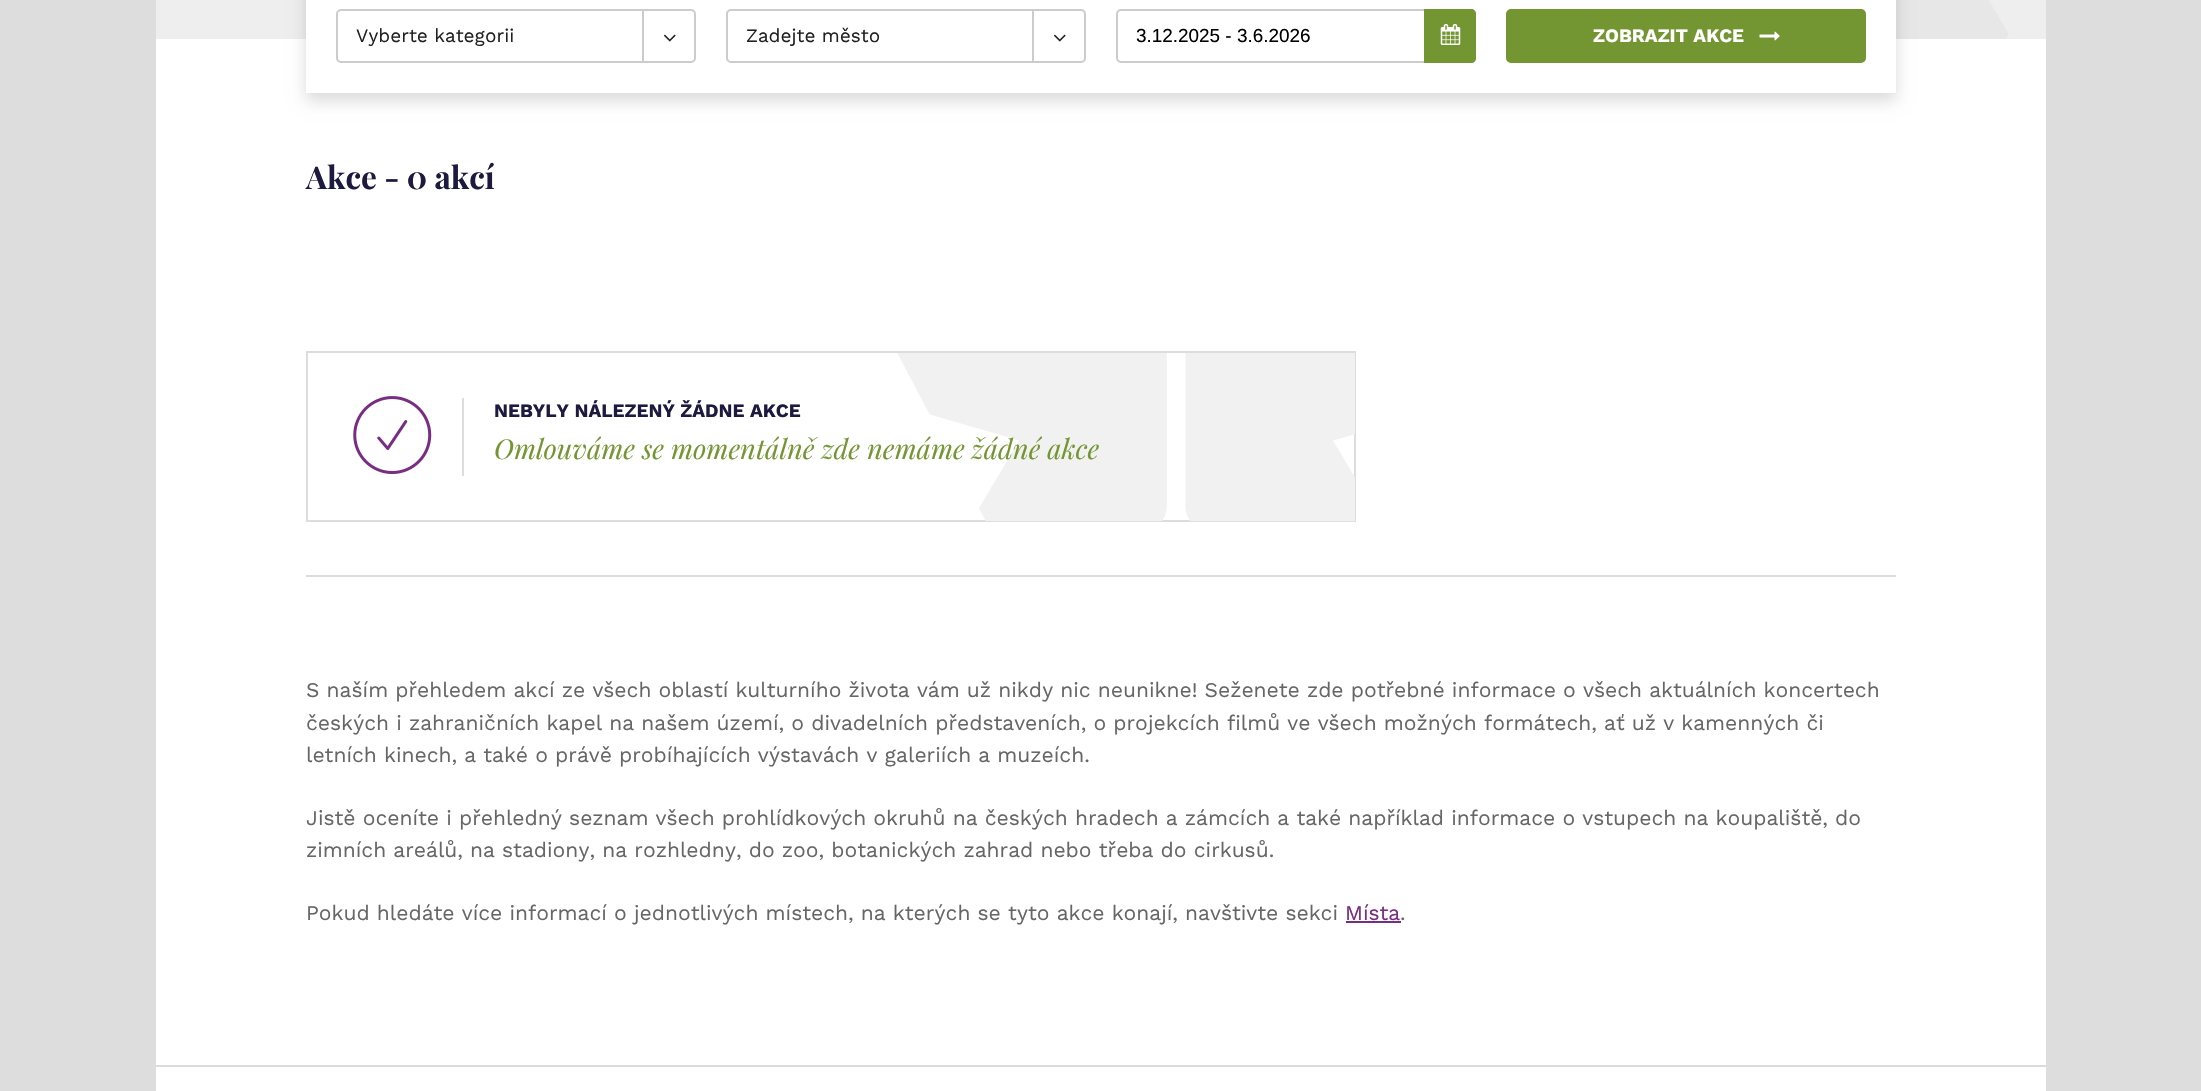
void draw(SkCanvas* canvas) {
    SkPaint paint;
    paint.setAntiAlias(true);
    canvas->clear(0xFFDDDDDD);
    paint.setColor(0xFFFFFFFF);
    canvas->drawRect(SkRect::MakeXYWH(156, 39, 1890, 1052), paint);
    paint.setColor(0xFFEEEEEE);
    canvas->drawRect(SkRect::MakeXYWH(156, 0, 1890, 39), paint);
    canvas->drawImageRect(SkImages::DeferredFromEncodedData(SkData::MakeFromFileName("img1.png")), SkRect::MakeXYWH(1896, 0, 113, 39), SkSamplingOptions());
    paint.setColor(0x24000000);
    paint.setMaskFilter(SkMaskFilter::MakeBlur(kNormal_SkBlurStyle, 7.5f));
    canvas->drawRect(SkRect::MakeXYWH(306, -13, 1590, 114), paint);
    paint.setMaskFilter(nullptr);
    paint.setColor(0xFFFFFFFF);
    canvas->drawRect(SkRect::MakeXYWH(306, 0, 1590, 93), paint);
    paint.setStyle(SkPaint::kStroke_Style);
    paint.setStrokeWidth(2);
    paint.setColor(0xFFCCCCCC);
    canvas->drawRoundRect(SkRect::MakeXYWH(337, 10, 358, 52), 4, 4, paint);
    SkFont font1(fontMgr->matchFamilyStyle("Work Sans", SkFontStyle::Normal()), 18.9f);
    font1.setSubpixel(true);
    paint.setStyle(SkPaint::kFill_Style);
    paint.setColor(0xFF212121);
    canvas->drawString("Vyberte kategorii", 356, 42, font1, paint);
    paint.setColor(0xFFCCCCCC);
    canvas->drawRect(SkRect::MakeXYWH(642, 11, 2, 51), paint);
    canvas->drawImageRect(SkImages::DeferredFromEncodedData(SkData::MakeFromFileName("img2.png")), SkRect::MakeXYWH(663, 34, 13, 8), SkSamplingOptions());
    paint.setStyle(SkPaint::kStroke_Style);
    canvas->drawRoundRect(SkRect::MakeXYWH(727, 10, 358, 52), 4, 4, paint);
    paint.setStyle(SkPaint::kFill_Style);
    paint.setColor(0xFF212121);
    canvas->drawString("Zadejte město", 746, 42, font1, paint);
    paint.setColor(0xFFCCCCCC);
    canvas->drawRect(SkRect::MakeXYWH(1032, 11, 2, 51), paint);
    canvas->drawImageRect(SkImages::DeferredFromEncodedData(SkData::MakeFromFileName("img2.png")), SkRect::MakeXYWH(1053, 34, 13, 8), SkSamplingOptions());
    paint.setStyle(SkPaint::kStroke_Style);
    canvas->drawRoundRect(SkRect::MakeXYWH(1117, 10, 358, 52), 4, 4, paint);
    SkFont font2(fontMgr->matchFamilyStyle("Liberation Sans", SkFontStyle::Normal()), 18.9f);
    font2.setSubpixel(true);
    paint.setStyle(SkPaint::kFill_Style);
    paint.setColor(0xFF000000);
    canvas->drawString("3.12.2025 - 3.6.2026", 1136, 42, font2, paint);
    paint.setColor(0xFF739632);
    canvas->drawPath(SkPathBuilder().moveTo(1424, 9).lineTo(1471, 9).cubicTo(1474, 9, 1476, 11, 1476, 14).lineTo(1476, 58).cubicTo(1476, 61, 1474, 63, 1471, 63).lineTo(1424, 63).close().detach(), paint);
    canvas->drawImageRect(SkImages::DeferredFromEncodedData(SkData::MakeFromFileName("img3.png")), SkRect::MakeXYWH(1440, 24, 21, 21), SkSamplingOptions());
    canvas->drawRoundRect(SkRect::MakeXYWH(1507, 10, 358, 52), 4, 4, paint);
    paint.setStyle(SkPaint::kStroke_Style);
    canvas->drawRoundRect(SkRect::MakeXYWH(1507, 10, 358, 52), 4, 4, paint);
    SkFont font3(fontMgr->matchFamilyStyle("Work Sans", SkFontStyle::Bold()), 18.9f);
    font3.setSubpixel(true);
    paint.setStyle(SkPaint::kFill_Style);
    paint.setColor(0xFFFFFFFF);
    canvas->drawString("ZOBRAZIT AKCE", 1593, 42, font3, paint);
    canvas->drawImageRect(SkImages::DeferredFromEncodedData(SkData::MakeFromFileName("img4.png")), SkRect::MakeXYWH(1759, 31, 21, 10), SkSamplingOptions());
    SkFont font4(fontMgr->matchFamilyStyle("Playfair Display", SkFontStyle::Bold()), 31.5f);
    font4.setSubpixel(true);
    paint.setColor(0xFF1D193F);
    canvas->drawString("Akce - 0 akcí", 306, 189, font4, paint);
    paint.setStyle(SkPaint::kStroke_Style);
    paint.setColor(0xFFDDDDDD);
    canvas->drawRect(SkRect::MakeXYWH(307, 352, 1048, 169), paint);
    paint.setStyle(SkPaint::kFill_Style);
    canvas->drawRect(SkRect::MakeXYWH(462, 398, 2, 78), paint);
    canvas->drawImageRect(SkImages::DeferredFromEncodedData(SkData::MakeFromFileName("img5.png")), SkRect::MakeXYWH(353, 396, 79, 79), SkSamplingOptions());
    paint.setColor(0xFF1D193F);
    canvas->drawString("NEBYLY NÁLEZENÝ ŽÁDNE AKCE", 494, 417, font3, paint);
    canvas->drawImageRect(SkImages::DeferredFromEncodedData(SkData::MakeFromFileName("img6.png")), SkRect::MakeXYWH(897, 353, 458, 168), SkSamplingOptions());
    SkFont font5(fontMgr->matchFamilyStyle("Playfair Display", SkFontStyle::Italic()), 27.3f);
    font5.setSubpixel(true);
    paint.setColor(0xFF739632);
    canvas->drawString("Omlouváme se momentálně zde nemáme žádné akce", 494, 459, font5, paint);
    paint.setColor(0xFFD9DDDF);
    canvas->drawRect(SkRect::MakeXYWH(306, 575, 1590, 2), paint);
    SkFont font6(fontMgr->matchFamilyStyle("Work Sans", SkFontStyle::Normal()), 21);
    font6.setSubpixel(true);
    paint.setColor(0xFF666666);
    canvas->drawString("S naším přehledem akcí ze všech oblastí kulturního života vám už nikdy nic neunikne! Seženete zde potřebné informace o všech aktuálních koncertech", 306, 697, font6, paint);
    canvas->drawString("českých i zahraničních kapel na našem území, o divadelních představeních, o projekcích filmů ve všech možných formátech, ať už v kamenných či", 306, 730, font6, paint);
    canvas->drawString("letních kinech, a také o právě probíhajících výstavách v galeriích a muzeích.", 306, 762, font6, paint);
    canvas->drawString("Jistě oceníte i přehledný seznam všech prohlídkových okruhů na českých hradech a zámcích a také například informace o vstupech na koupaliště, do", 306, 825, font6, paint);
    canvas->drawString("zimních areálů, na stadiony, na rozhledny, do zoo, botanických zahrad nebo třeba do cirkusů.", 306, 857, font6, paint);
    canvas->drawString("Pokud hledáte více informací o jednotlivých místech, na kterých se tyto akce konají, navštivte sekci", 306, 920, font6, paint);
    paint.setColor(0xFF782D82);
    canvas->drawString("Místa", 1345, 920, font6, paint);
    canvas->drawRect(SkRect::MakeXYWH(1346, 921, 55, 2), paint);
    paint.setColor(0xFF666666);
    canvas->drawString(".", 1400, 920, font6, paint);
    paint.setColor(0xFFD9DDDF);
    canvas->drawRect(SkRect::MakeXYWH(156, 1065, 1890, 2), paint);
}
